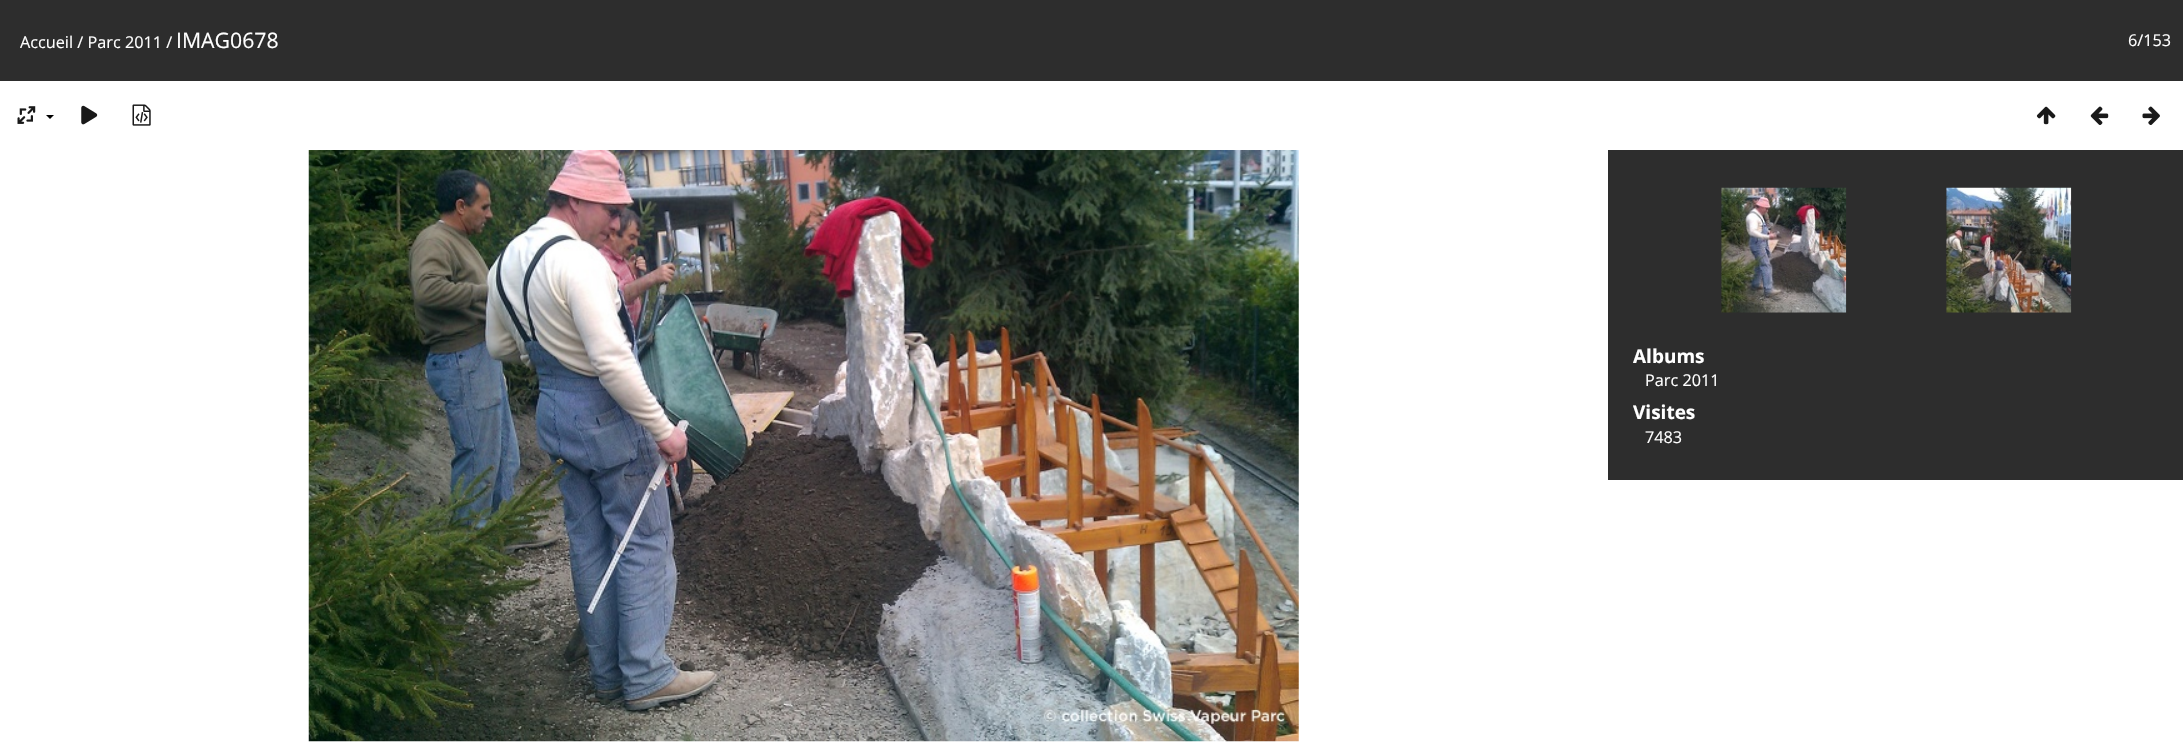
void draw(SkCanvas* canvas) {
    SkPaint paint;
    paint.setAntiAlias(true);
    canvas->clear(0xFFFFFFFF);
    paint.setColor(0xFF2D2D2D);
    canvas->drawRect(SkRect::MakeXYWH(0, 0, 2183, 81), paint);
    SkFont font1(fontMgr->matchFamilyStyle("Open Sans", SkFontStyle::Normal()), 16.25f);
    font1.setSubpixel(true);
    paint.setColor(0xFFFFFFFF);
    canvas->drawString("Accueil / Parc 2011 /", 20, 48, font1, paint);
    SkFont font2(fontMgr->matchFamilyStyle("Open Sans", SkFontStyle::Normal()), 21.25f);
    font2.setSubpixel(true);
    canvas->drawString("IMAG0678", 176, 48, font2, paint);
    canvas->drawString("6/153", 2128, 46, font1, paint);
    canvas->drawImageRect(SkImages::DeferredFromEncodedData(SkData::MakeFromFileName("img1.png")), SkRect::MakeXYWH(17, 106, 19, 18), SkSamplingOptions());
    paint.setColor(0xFF000000);
    canvas->drawPath(SkPathBuilder().moveTo(46, 115).lineTo(54, 115).lineTo(50, 119).close().detach(), paint);
    canvas->drawImageRect(SkImages::DeferredFromEncodedData(SkData::MakeFromFileName("img2.png")), SkRect::MakeXYWH(81, 105, 17, 20), SkSamplingOptions());
    canvas->drawImageRect(SkImages::DeferredFromEncodedData(SkData::MakeFromFileName("img3.png")), SkRect::MakeXYWH(132, 104, 19, 22), SkSamplingOptions());
    canvas->drawImageRect(SkImages::DeferredFromEncodedData(SkData::MakeFromFileName("img4.png")), SkRect::MakeXYWH(2036, 106, 20, 19), SkSamplingOptions());
    canvas->drawImageRect(SkImages::DeferredFromEncodedData(SkData::MakeFromFileName("img5.png")), SkRect::MakeXYWH(2090, 106, 19, 19), SkSamplingOptions());
    canvas->drawImageRect(SkImages::DeferredFromEncodedData(SkData::MakeFromFileName("img6.png")), SkRect::MakeXYWH(2142, 106, 18, 19), SkSamplingOptions());
    canvas->drawImageRect(SkImages::DeferredFromEncodedData(SkData::MakeFromFileName("img7.png")), SkRect::MakeXYWH(308, 150, 991, 592), SkSamplingOptions());
    paint.setColor(0xFF2D2D2D);
    canvas->drawRect(SkRect::MakeXYWH(1608, 150, 575, 330), paint);
    canvas->drawImageRect(SkImages::DeferredFromEncodedData(SkData::MakeFromFileName("img8.png")), SkRect::MakeXYWH(1721, 187, 126, 126), SkSamplingOptions());
    canvas->drawImageRect(SkImages::DeferredFromEncodedData(SkData::MakeFromFileName("img9.png")), SkRect::MakeXYWH(1946, 187, 126, 126), SkSamplingOptions());
    SkFont font3(fontMgr->matchFamilyStyle("Open Sans", SkFontStyle::Bold()), 19);
    font3.setSubpixel(true);
    paint.setColor(0xFFFFFFFF);
    canvas->drawString("Albums", 1633, 363, font3, paint);
    canvas->drawString("Parc 2011", 1645, 386, font1, paint);
    canvas->drawString("Visites", 1633, 419, font3, paint);
    canvas->drawString("7483", 1645, 443, font1, paint);
}
